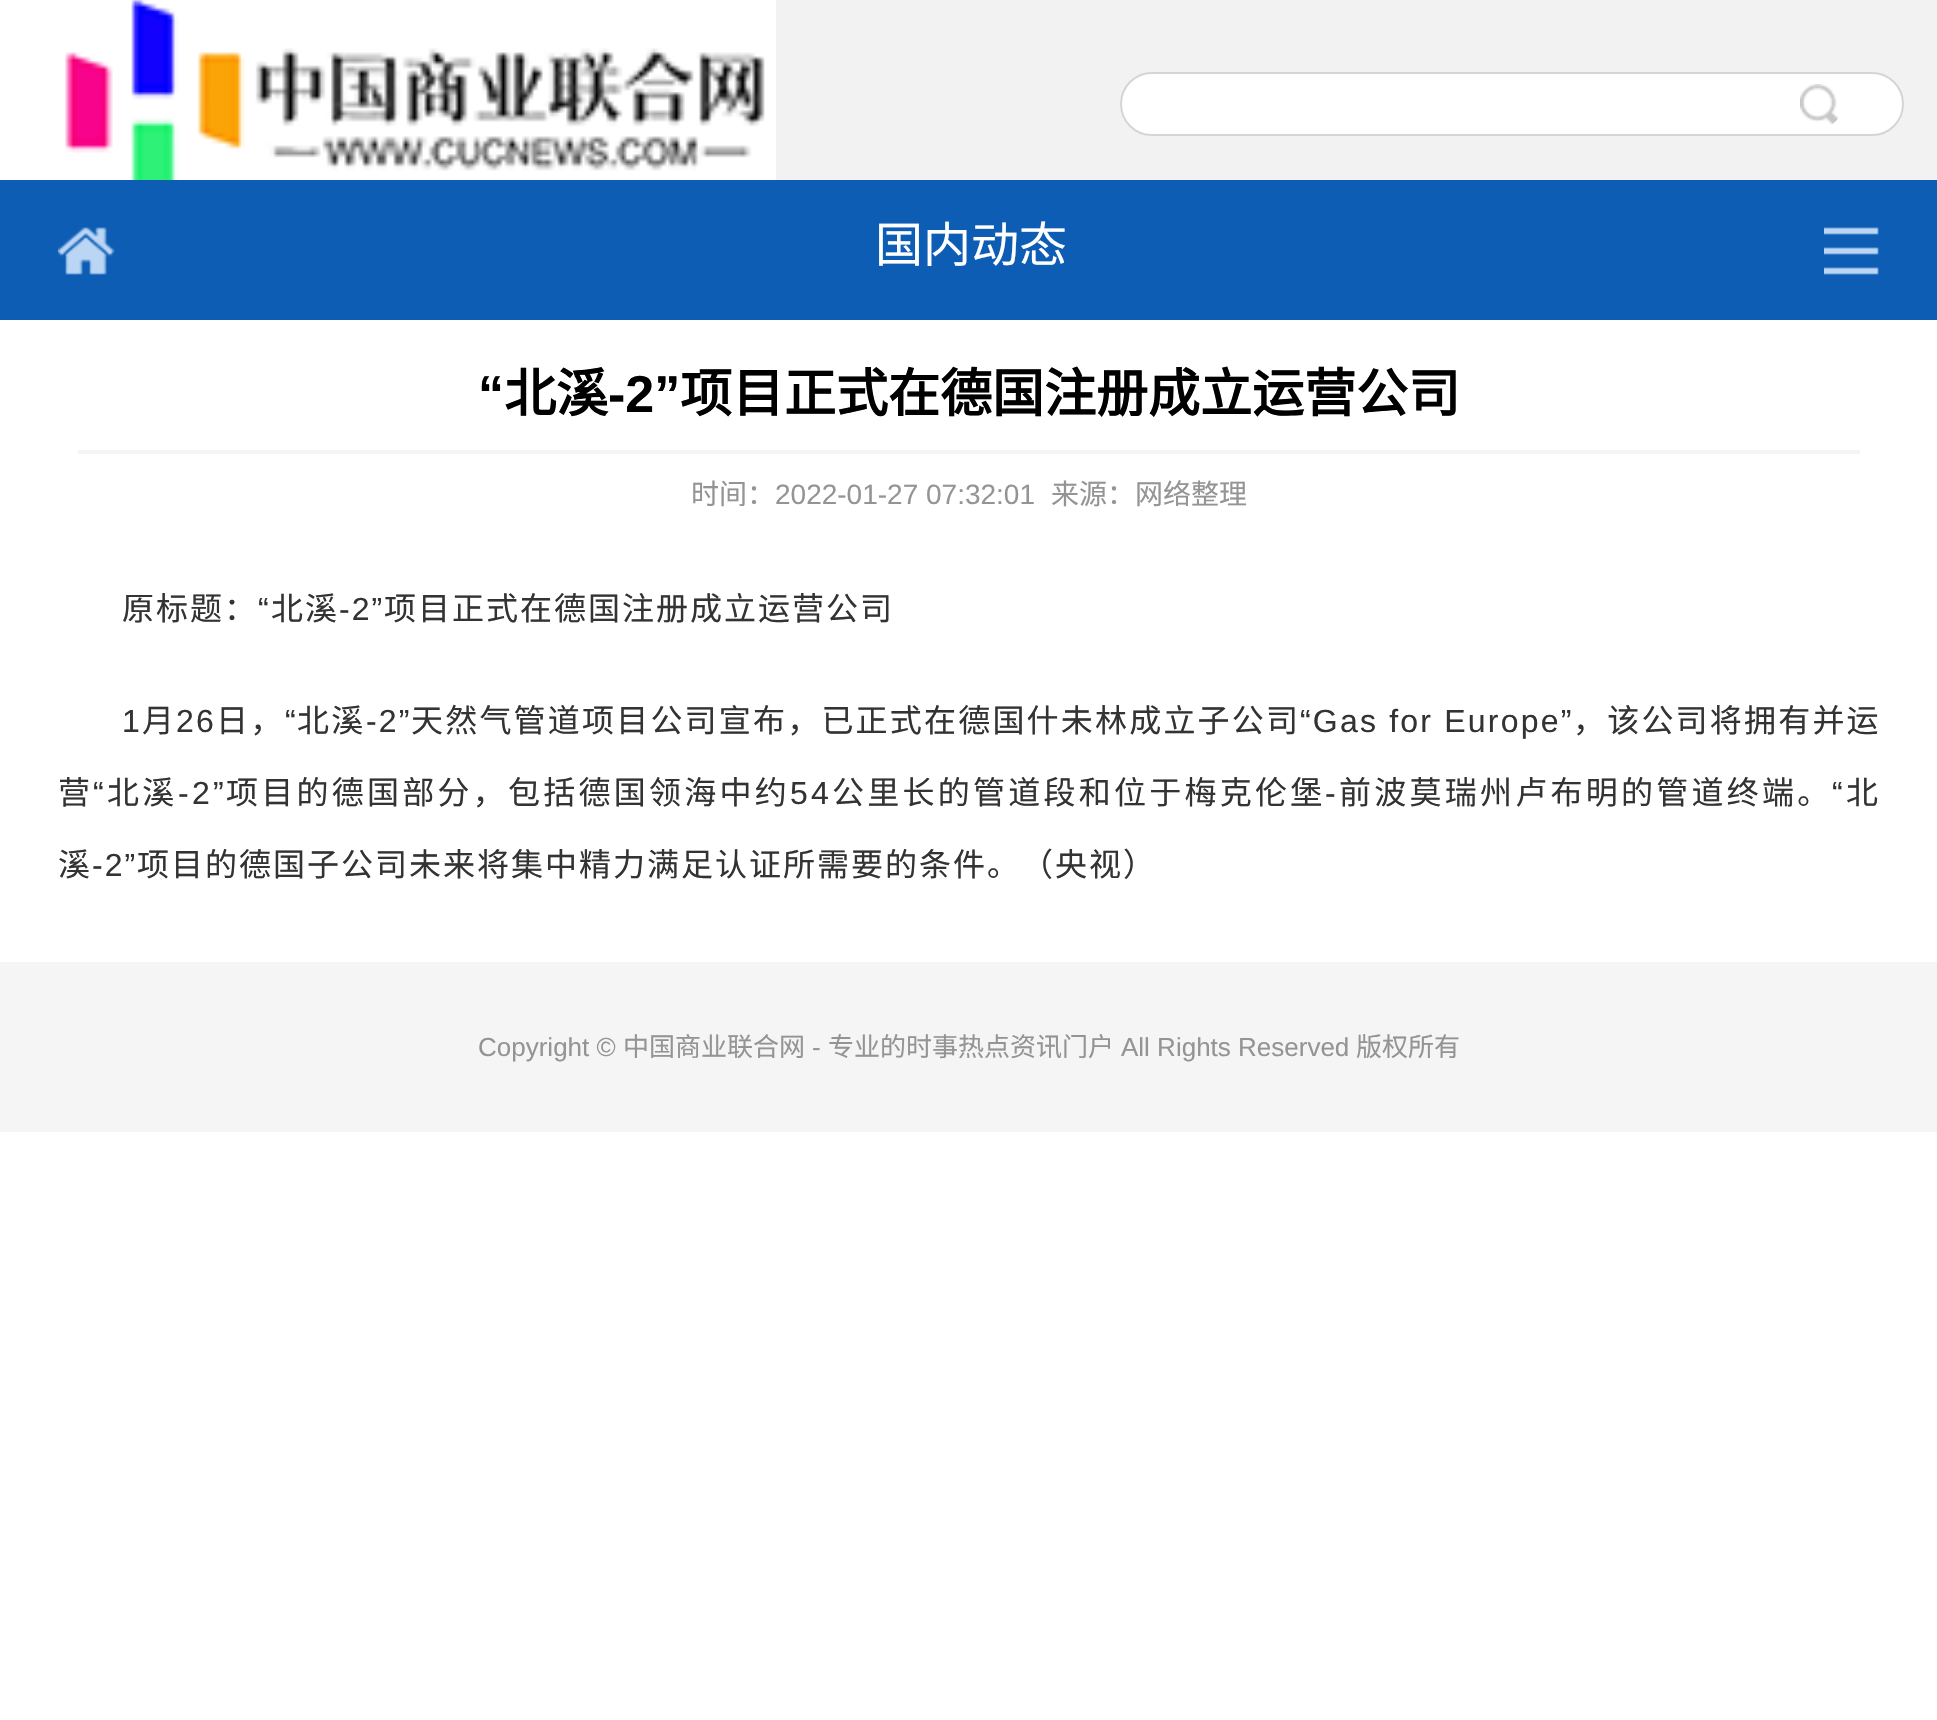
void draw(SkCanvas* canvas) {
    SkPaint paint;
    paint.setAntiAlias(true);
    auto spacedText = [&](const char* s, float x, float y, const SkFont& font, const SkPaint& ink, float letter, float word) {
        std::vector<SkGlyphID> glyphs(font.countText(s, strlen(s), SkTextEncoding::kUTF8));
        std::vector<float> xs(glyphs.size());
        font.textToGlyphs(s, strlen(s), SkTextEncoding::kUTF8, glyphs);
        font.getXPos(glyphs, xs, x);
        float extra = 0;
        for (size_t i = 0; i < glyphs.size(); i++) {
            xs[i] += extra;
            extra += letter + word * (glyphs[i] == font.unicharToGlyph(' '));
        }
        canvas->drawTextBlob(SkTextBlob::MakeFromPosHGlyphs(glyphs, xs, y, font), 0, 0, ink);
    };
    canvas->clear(0xFFFFFFFF);
    paint.setColor(0xFFF2F2F2);
    canvas->drawRect(SkRect::MakeXYWH(0, 0, 1937, 180), paint);
    canvas->drawImageRect(SkImages::DeferredFromEncodedData(SkData::MakeFromFileName("img1.png")), SkRect::MakeXYWH(0, 0, 776, 180), SkSamplingOptions());
    paint.setColor(0xFFFFFFFF);
    canvas->drawRoundRect(SkRect::MakeXYWH(1121, 73, 782, 62), 31, 31, paint);
    paint.setStyle(SkPaint::kStroke_Style);
    paint.setStrokeWidth(2);
    paint.setColor(0xFFD6D5D5);
    canvas->drawRoundRect(SkRect::MakeXYWH(1121, 73, 782, 62), 31, 31, paint);
    canvas->drawImageRect(SkImages::DeferredFromEncodedData(SkData::MakeFromFileName("img2.png")), SkRect::MakeXYWH(1800, 84, 39, 41), SkSamplingOptions());
    paint.setStyle(SkPaint::kFill_Style);
    paint.setColor(0xFF0D5DB4);
    canvas->drawRect(SkRect::MakeXYWH(0, 180, 1937, 140), paint);
    canvas->drawImageRect(SkImages::DeferredFromEncodedData(SkData::MakeFromFileName("img3.png")), SkRect::MakeXYWH(58, 227, 57, 48), SkSamplingOptions());
    SkFont font1(fontMgr->matchFamilyStyle("Noto Sans CJK SC", SkFontStyle::Normal()), 48);
    font1.setSubpixel(true);
    paint.setColor(0xFFFFFFFF);
    canvas->drawString("国内动态", 875, 262, font1, paint);
    canvas->drawImageRect(SkImages::DeferredFromEncodedData(SkData::MakeFromFileName("img4.png")), SkRect::MakeXYWH(1824, 227, 55, 48), SkSamplingOptions());
    paint.setColor(0xFFF5F5F5);
    canvas->drawRect(SkRect::MakeXYWH(78, 450, 1782, 4), paint);
    SkFont font2(fontMgr->matchFamilyStyle("Liberation Sans", SkFontStyle::Bold()), 52);
    font2.setSubpixel(true);
    paint.setColor(0xFF000000);
    canvas->drawString("“", 478, 412, font2, paint);
    SkFont font3(fontMgr->matchFamilyStyle("Noto Sans CJK SC", SkFontStyle::Bold()), 52);
    font3.setSubpixel(true);
    canvas->drawString("北溪", 504, 412, font3, paint);
    canvas->drawString("-2”", 608, 412, font2, paint);
    canvas->drawString("项目正式在德国注册成立运营公司", 680, 412, font3, paint);
    SkFont font4(fontMgr->matchFamilyStyle("Noto Sans CJK SC", SkFontStyle::Normal()), 28);
    font4.setSubpixel(true);
    paint.setColor(0xFF959494);
    canvas->drawString("时间：", 691, 504, font4, paint);
    SkFont font5(fontMgr->matchFamilyStyle("Liberation Sans", SkFontStyle::Normal()), 28);
    font5.setSubpixel(true);
    canvas->drawString("2022-01-27 07:32:01", 775, 504, font5, paint);
    canvas->drawString("来源：网络整理", 1051, 504, font4, paint);
    SkFont font6(fontMgr->matchFamilyStyle("Noto Sans CJK SC", SkFontStyle::Normal()), 32);
    font6.setSubpixel(true);
    paint.setColor(0xFF333333);
    spacedText("原标题：", 122, 620, font6, paint, 2, 0);
    SkFont font7(fontMgr->matchFamilyStyle("Liberation Sans", SkFontStyle::Normal()), 32);
    font7.setSubpixel(true);
    spacedText("“", 258, 620, font7, paint, 2, 0);
    spacedText("北溪", 271, 620, font6, paint, 2, 0);
    spacedText("-2”", 339, 620, font7, paint, 2, 0);
    spacedText("项目正式在德国注册成立运营公司", 384, 620, font6, paint, 2, 0);
    spacedText("1", 122, 732, font7, paint, 2.2f, 0);
    spacedText("月", 142, 732, font6, paint, 2.2f, 0);
    spacedText("26", 176, 732, font7, paint, 2.2f, 0);
    spacedText("日，", 216, 732, font6, paint, 2.2f, 0);
    spacedText("“", 285, 732, font7, paint, 2.2f, 0);
    spacedText("北溪", 297, 732, font6, paint, 2.2f, 0);
    spacedText("-2”", 366, 732, font7, paint, 2.2f, 0);
    spacedText("天然气管道项目公司宣布，已正式在德国什未林成立子公司", 411, 732, font6, paint, 2.2f, 0);
    spacedText("“Gas for Europe”", 1300, 732, font7, paint, 2.2f, 0);
    spacedText("，该公司将拥有并运", 1573, 732, font6, paint, 2.2f, 0);
    spacedText("营", 58, 804, font6, paint, 3.25f, 0);
    spacedText("“", 93, 804, font7, paint, 3.25f, 0);
    spacedText("北溪", 107, 804, font6, paint, 3.25f, 0);
    spacedText("-2”", 178, 804, font7, paint, 3.25f, 0);
    spacedText("项目的德国部分，包括德国领海中约", 226, 804, font6, paint, 3.25f, 0);
    spacedText("54", 790, 804, font7, paint, 3.25f, 0);
    spacedText("公里长的管道段和位于梅克伦堡", 832, 804, font6, paint, 3.25f, 0);
    spacedText("前波莫瑞州卢布明的管道终端。", 1339, 804, font6, paint, 3.25f, 0);
    spacedText("“", 1832, 804, font7, paint, 3.25f, 0);
    spacedText("北", 1846, 804, font6, paint, 3.25f, 0);
    spacedText("-", 1325, 804, font7, paint, 3.25f, 0);
    spacedText("溪", 58, 876, font6, paint, 2, 0);
    spacedText("-2”", 92, 876, font7, paint, 2, 0);
    spacedText("项目的德国子公司未来将集中精力满足认证所需要的条件。（央视）", 137, 876, font6, paint, 2, 0);
    paint.setColor(0xFFF5F5F5);
    canvas->drawRect(SkRect::MakeXYWH(0, 962, 1937, 170), paint);
    SkFont font8(fontMgr->matchFamilyStyle("Liberation Sans", SkFontStyle::Normal()), 26);
    font8.setSubpixel(true);
    paint.setColor(0xFF959494);
    canvas->drawString("Copyright ©", 478, 1056, font8, paint);
    SkFont font9(fontMgr->matchFamilyStyle("Noto Sans CJK SC", SkFontStyle::Normal()), 26);
    font9.setSubpixel(true);
    canvas->drawString("中国商业联合网", 623, 1056, font9, paint);
    canvas->drawString("-", 812, 1056, font8, paint);
    canvas->drawString("专业的时事热点资讯门户", 828, 1056, font9, paint);
    canvas->drawString("All Rights Reserved", 1121, 1056, font8, paint);
    canvas->drawString("版权所有", 1356, 1056, font9, paint);
}
